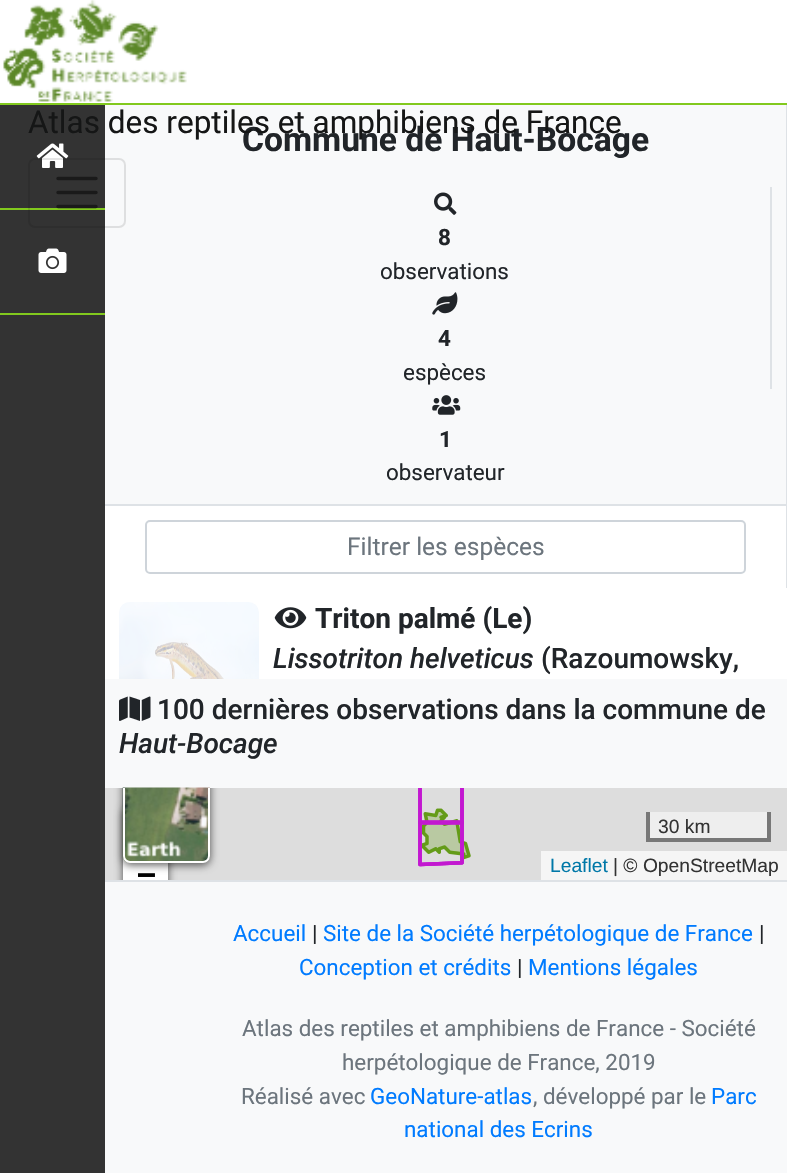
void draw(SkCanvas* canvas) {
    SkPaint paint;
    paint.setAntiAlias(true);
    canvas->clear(0xFFDEE2E6);
    paint.setColor(0xFF333333);
    canvas->drawRect(SkRect::MakeXYWH(0, 105, 105, 1068), paint);
    paint.setColor(0xFF82C91E);
    canvas->drawRect(SkRect::MakeXYWH(0, 208, 105, 2), paint);
    canvas->drawImageRect(SkImages::DeferredFromEncodedData(SkData::MakeFromFileName("img1.png")), SkRect::MakeXYWH(36, 143, 33, 25), SkSamplingOptions());
    canvas->drawRect(SkRect::MakeXYWH(0, 313, 105, 2), paint);
    canvas->drawImageRect(SkImages::DeferredFromEncodedData(SkData::MakeFromFileName("img2.png")), SkRect::MakeXYWH(38, 248, 29, 25), SkSamplingOptions());
    paint.setColor(0xFFFFFFFF);
    canvas->drawRect(SkRect::MakeXYWH(0, 0, 787, 103), paint);
    paint.setColor(0xFF82C91E);
    canvas->drawRect(SkRect::MakeXYWH(0, 103, 787, 2), paint);
    canvas->drawImageRect(SkImages::DeferredFromEncodedData(SkData::MakeFromFileName("img3.png")), SkRect::MakeXYWH(3, 0, 184, 102), SkSamplingOptions());
    paint.setColor(0xFFF8F9FA);
    canvas->drawRect(SkRect::MakeXYWH(105, 105, 681, 399), paint);
    SkFont font1(fontMgr->matchFamilyStyle("Roboto", SkFontStyle::Bold()), 33.6f);
    font1.setSubpixel(true);
    paint.setColor(0xFF212529);
    canvas->drawString("Commune de Haut-Bocage", 242, 151, font1, paint);
    SkFont font2(fontMgr->matchFamilyStyle("Roboto", SkFontStyle::Normal()), 31.5f);
    font2.setSubpixel(true);
    paint.setColor(0xFF151616);
    canvas->drawString("Atlas des reptiles et amphibiens de France", 28, 133, font2, paint);
    paint.setStyle(SkPaint::kStroke_Style);
    paint.setStrokeWidth(2);
    paint.setColor(0x1A000000);
    canvas->drawRoundRect(SkRect::MakeXYWH(29, 159, 96, 68), 6, 6, paint);
    paint.setStrokeWidth(3.5f);
    paint.setStrokeCap(SkPaint::kRound_Cap);
    paint.setColor(0xFF1A1A1A);
    canvas->drawPath(SkPathBuilder().moveTo(58, 178.5f).lineTo(96, 178.5f).moveTo(58, 192.5f).lineTo(96, 192.5f).moveTo(58, 206.5f).lineTo(96, 206.5f).detach(), paint);
    paint.setStyle(SkPaint::kFill_Style);
    paint.setColor(0xFFDEE2E6);
    canvas->drawRect(SkRect::MakeXYWH(770, 187, 2, 202), paint);
    canvas->drawImageRect(SkImages::DeferredFromEncodedData(SkData::MakeFromFileName("img4.png")), SkRect::MakeXYWH(434, 192, 23, 23), SkSamplingOptions());
    SkFont font3(fontMgr->matchFamilyStyle("Roboto", SkFontStyle::Bold()), 22.4f);
    font3.setSubpixel(true);
    paint.setColor(0xFF212529);
    canvas->drawString("8", 438, 245, font3, paint);
    SkFont font4(fontMgr->matchFamilyStyle("Roboto", SkFontStyle::Normal()), 22.4f);
    font4.setSubpixel(true);
    canvas->drawString("observations", 380, 279, font4, paint);
    canvas->drawImageRect(SkImages::DeferredFromEncodedData(SkData::MakeFromFileName("img5.png")), SkRect::MakeXYWH(432, 292, 26, 23), SkSamplingOptions());
    canvas->drawString("4", 438, 346, font3, paint);
    canvas->drawString("espèces", 403, 380, font4, paint);
    canvas->drawImageRect(SkImages::DeferredFromEncodedData(SkData::MakeFromFileName("img6.png")), SkRect::MakeXYWH(432, 395, 29, 20), SkSamplingOptions());
    canvas->drawString("1", 439, 447, font3, paint);
    canvas->drawString("observateur", 386, 480, font4, paint);
    paint.setColor(0xFFFFFFFF);
    canvas->drawRect(SkRect::MakeXYWH(105, 506, 681, 82), paint);
    paint.setStyle(SkPaint::kStroke_Style);
    paint.setStrokeWidth(2);
    paint.setStrokeCap(SkPaint::kButt_Cap);
    paint.setColor(0xFFCED4DA);
    canvas->drawRoundRect(SkRect::MakeXYWH(146, 521, 599, 52), 4, 4, paint);
    SkFont font5(fontMgr->matchFamilyStyle("Roboto", SkFontStyle::Normal()), 24.5f);
    font5.setSubpixel(true);
    paint.setStyle(SkPaint::kFill_Style);
    paint.setColor(0xFF6C757D);
    canvas->drawString("Filtrer les espèces", 347, 555, font5, paint);
    paint.setColor(0xFFFFFFFF);
    canvas->drawRect(SkRect::MakeXYWH(105, 588, 682, 91), paint);
    canvas->drawImageRect(SkImages::DeferredFromEncodedData(SkData::MakeFromFileName("img7.png")), SkRect::MakeXYWH(119, 602, 140, 77), SkSamplingOptions());
    canvas->drawImageRect(SkImages::DeferredFromEncodedData(SkData::MakeFromFileName("img8.png")), SkRect::MakeXYWH(274, 607, 33, 22), SkSamplingOptions());
    SkFont font6(fontMgr->matchFamilyStyle("Roboto", SkFontStyle::Bold()), 28);
    font6.setSubpixel(true);
    paint.setColor(0xFF212529);
    canvas->drawString("Triton palmé (Le)", 315, 628, font6, paint);
    SkFont font7(fontMgr->matchFamilyStyle("Roboto", SkFontStyle(500, SkFontStyle::kNormal_Width, SkFontStyle::kItalic_Slant)), 28);
    font7.setSubpixel(true);
    canvas->drawString("Lissotriton helveticus", 273, 668, font7, paint);
    SkFont font8(fontMgr->matchFamilyStyle("Roboto", SkFontStyle(500, SkFontStyle::kNormal_Width, SkFontStyle::kUpright_Slant)), 28);
    font8.setSubpixel(true);
    canvas->drawString("(Razoumowsky,", 541, 668, font8, paint);
    paint.setColor(0xFFF8F9FA);
    canvas->drawRect(SkRect::MakeXYWH(105, 679, 682, 109), paint);
    canvas->drawImageRect(SkImages::DeferredFromEncodedData(SkData::MakeFromFileName("img9.png")), SkRect::MakeXYWH(119, 696, 32, 25), SkSamplingOptions());
    paint.setColor(0xFF212529);
    canvas->drawString("100 dernières observations dans la commune de", 157, 719, font8, paint);
    canvas->drawString("Haut-Bocage", 119, 753, font7, paint);
    paint.setColor(0xFFDDDDDD);
    canvas->drawRect(SkRect::MakeXYWH(105, 788, 682, 92), paint);
    canvas->drawImageRect(SkImages::DeferredFromEncodedData(SkData::MakeFromFileName("img10.png")), SkRect::MakeXYWH(418, 788, 53, 79), SkSamplingOptions());
    paint.setColor(0xFFF8F9FA);
    canvas->drawRect(SkRect::MakeXYWH(105, 882, 682, 291), paint);
    canvas->save();
    canvas->clipRect(SkRect::MakeXYWH(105, 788, 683, 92));
    paint.setColor(0xA6000000);
    paint.setMaskFilter(SkMaskFilter::MakeBlur(kNormal_SkBlurStyle, 4.5f));
    canvas->drawRoundRect(SkRect::MakeXYWH(123, 807, 45, 91), 7, 7, paint);
    paint.setMaskFilter(nullptr);
    canvas->restore();
    paint.setColor(0xFFFFFFFF);
    canvas->drawRect(SkRect::MakeXYWH(123, 851, 45, 29), paint);
    canvas->save();
    canvas->clipRect(SkRect::MakeXYWH(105, 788, 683, 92));
    paint.setColor(0xA6000000);
    paint.setMaskFilter(SkMaskFilter::MakeBlur(kNormal_SkBlurStyle, 4.5f));
    canvas->drawRoundRect(SkRect::MakeXYWH(123, 777, 87, 88), 7, 7, paint);
    paint.setMaskFilter(nullptr);
    canvas->restore();
    canvas->drawImageRect(SkImages::DeferredFromEncodedData(SkData::MakeFromFileName("img11.png")), SkRect::MakeXYWH(122, 787, 88, 76), SkSamplingOptions());
    canvas->save();
    canvas->clipRect(SkRect::MakeXYWH(105, 788, 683, 92));
    paint.setStyle(SkPaint::kStroke_Style);
    paint.setColor(0xFFFFFFFF);
    canvas->drawRoundRect(SkRect::MakeXYWH(124, 776, 85, 86), 6, 6, paint);
    canvas->restore();
    paint.setStyle(SkPaint::kFill_Style);
    paint.setColor(0xFFEEEEEE);
    canvas->drawRect(SkRect::MakeXYWH(650, 812, 117, 26), paint);
    paint.setColor(0xFF777777);
    canvas->drawRect(SkRect::MakeXYWH(767, 812, 4, 30), paint);
    canvas->drawRect(SkRect::MakeXYWH(646, 838, 124, 4), paint);
    canvas->drawRect(SkRect::MakeXYWH(646, 812, 4, 30), paint);
    SkFont font9(fontMgr->matchFamilyStyle("Liberation Sans", SkFontStyle::Normal()), 19.25f);
    font9.setSubpixel(true);
    paint.setColor(0xFF333333);
    canvas->drawString("30 km", 658, 833, font9, paint);
    paint.setColor(0xFFF5F5F5);
    canvas->drawRect(SkRect::MakeXYWH(541, 851, 246, 29), paint);
    paint.setColor(0xFF0078A8);
    canvas->drawString("Leaflet", 550, 872, font9, paint);
    paint.setColor(0xFF333333);
    canvas->drawString("| © OpenStreetMap", 613, 872, font9, paint);
    SkFont font10(fontMgr->matchFamilyStyle("DejaVu Sans Mono", SkFontStyle::Bold()), 31.5f);
    font10.setSubpixel(true);
    paint.setColor(0xFF000000);
    canvas->drawString("−", 137, 885, font10, paint);
    paint.setColor(0xFF007BFF);
    canvas->drawString("Accueil", 233, 941, font4, paint);
    paint.setColor(0xFF212529);
    canvas->drawString("|", 312, 941, font4, paint);
    paint.setColor(0xFF007BFF);
    canvas->drawString("Site de la Société herpétologique de France", 323, 941, font4, paint);
    paint.setColor(0xFF212529);
    canvas->drawString("|", 759, 941, font4, paint);
    paint.setColor(0xFF007BFF);
    canvas->drawString("Conception et crédits", 299, 975, font4, paint);
    paint.setColor(0xFF212529);
    canvas->drawString("|", 517, 975, font4, paint);
    paint.setColor(0xFF007BFF);
    canvas->drawString("Mentions légales", 528, 975, font4, paint);
    paint.setColor(0xFF6C757D);
    canvas->drawString("Atlas des reptiles et amphibiens de France - Société", 242, 1036, font4, paint);
    canvas->drawString("herpétologique de France, 2019", 342, 1070, font4, paint);
    canvas->drawString("Réalisé avec", 241, 1104, font4, paint);
    paint.setColor(0xFF007BFF);
    canvas->drawString("GeoNature-atlas", 370, 1104, font4, paint);
    paint.setColor(0xFF6C757D);
    canvas->drawString(", développé par le", 533, 1104, font4, paint);
    paint.setColor(0xFF007BFF);
    canvas->drawString("Parc", 711, 1104, font4, paint);
    canvas->drawString("national des Ecrins", 404, 1137, font4, paint);
}
